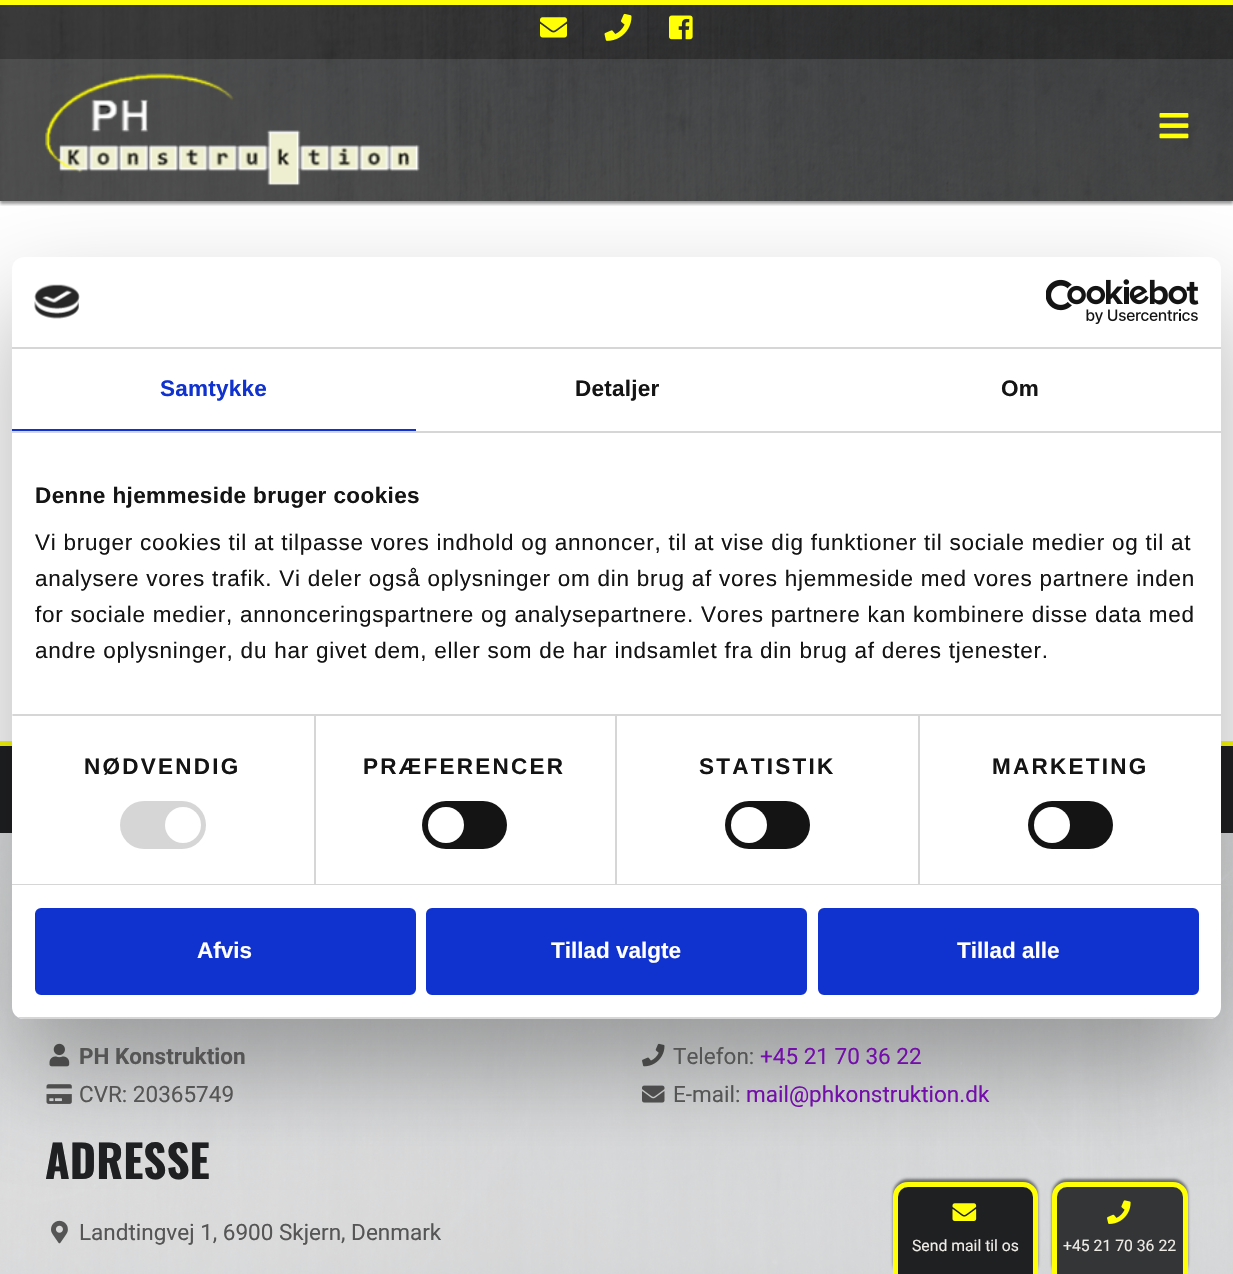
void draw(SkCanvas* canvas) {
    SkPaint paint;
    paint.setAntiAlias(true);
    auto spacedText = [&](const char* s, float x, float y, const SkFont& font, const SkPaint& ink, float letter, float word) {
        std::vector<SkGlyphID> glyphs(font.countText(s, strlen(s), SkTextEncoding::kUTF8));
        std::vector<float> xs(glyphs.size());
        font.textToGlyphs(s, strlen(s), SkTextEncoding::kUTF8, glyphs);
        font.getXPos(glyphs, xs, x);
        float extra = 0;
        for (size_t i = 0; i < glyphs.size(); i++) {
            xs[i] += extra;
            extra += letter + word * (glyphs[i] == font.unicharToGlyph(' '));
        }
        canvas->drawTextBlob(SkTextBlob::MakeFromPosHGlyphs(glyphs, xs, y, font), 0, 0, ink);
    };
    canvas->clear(0xFFFFFFFF);
    canvas->drawImageRect(SkImages::DeferredFromEncodedData(SkData::MakeFromFileName("img1.png")), SkRect::MakeXYWH(0, 5, 1233, 1269), SkSamplingOptions());
    paint.setColor(0xCC181617);
    canvas->drawRect(SkRect::MakeXYWH(0, 5, 1233, 54), paint);
    paint.setColor(0x1A000000);
    canvas->drawRect(SkRect::MakeXYWH(582, 5, 2, 54), paint);
    canvas->drawRect(SkRect::MakeXYWH(647, 5, 2, 54), paint);
    paint.setColor(0xFFFFFFFF);
    canvas->drawRect(SkRect::MakeXYWH(0, 201, 1233, 540), paint);
    canvas->save();
    canvas->clipRect(SkRect::MakeXYWH(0, 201, 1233, 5));
    paint.setColor(0x66000000);
    paint.setMaskFilter(SkMaskFilter::MakeBlur(kNormal_SkBlurStyle, 1.5f));
    canvas->drawRect(SkRect::MakeXYWH(0, 62, 1233, 142), paint);
    paint.setMaskFilter(nullptr);
    canvas->restore();
    paint.setColor(0xCC303030);
    canvas->drawRect(SkRect::MakeXYWH(0, 59, 1233, 142), paint);
    canvas->drawImageRect(SkImages::DeferredFromEncodedData(SkData::MakeFromFileName("img7.png")), SkRect::MakeXYWH(45, 73, 375, 113), SkSamplingOptions());
    paint.setColor(0xFF1F2022);
    canvas->drawRect(SkRect::MakeXYWH(0, 746, 1233, 87), paint);
    paint.setColor(0xFFFFFF08);
    canvas->drawRect(SkRect::MakeXYWH(0, 741, 1233, 5), paint);
    paint.setColor(0xCCFFFFFF);
    canvas->drawRect(SkRect::MakeXYWH(0, 833, 1233, 441), paint);
    canvas->drawImageRect(SkImages::DeferredFromEncodedData(SkData::MakeFromFileName("img9.png")), SkRect::MakeXYWH(49, 1043, 21, 24), SkSamplingOptions());
    canvas->drawImageRect(SkImages::DeferredFromEncodedData(SkData::MakeFromFileName("img10.png")), SkRect::MakeXYWH(46, 1084, 26, 20), SkSamplingOptions());
    canvas->drawImageRect(SkImages::DeferredFromEncodedData(SkData::MakeFromFileName("img11.png")), SkRect::MakeXYWH(51, 1220, 17, 24), SkSamplingOptions());
    canvas->drawImageRect(SkImages::DeferredFromEncodedData(SkData::MakeFromFileName("img12.png")), SkRect::MakeXYWH(642, 1043, 23, 24), SkSamplingOptions());
    canvas->drawImageRect(SkImages::DeferredFromEncodedData(SkData::MakeFromFileName("img13.png")), SkRect::MakeXYWH(642, 1085, 23, 18), SkSamplingOptions());
    paint.setColor(0x80000000);
    paint.setMaskFilter(SkMaskFilter::MakeBlur(kNormal_SkBlurStyle, 1.5f));
    canvas->drawRoundRect(SkRect::MakeXYWH(893, 1179, 145, 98), 15, 15, paint);
    paint.setMaskFilter(nullptr);
    paint.setColor(0xFF1F2022);
    canvas->drawPath(SkPathBuilder().moveTo(908, 1184.5f).lineTo(1023, 1184.5f).cubicTo(1030, 1184.5f, 1035.5f, 1190, 1035.5f, 1197).lineTo(1035.5f, 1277.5f).lineTo(895.5f, 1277.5f).lineTo(895.5f, 1197).cubicTo(895.5f, 1190, 901, 1184.5f, 908, 1184.5f).close().detach(), paint);
    paint.setStyle(SkPaint::kStroke_Style);
    paint.setStrokeWidth(5);
    paint.setColor(0xFFFFFF08);
    canvas->drawPath(SkPathBuilder().moveTo(908, 1184.5f).lineTo(1023, 1184.5f).cubicTo(1030, 1184.5f, 1035.5f, 1190, 1035.5f, 1197).lineTo(1035.5f, 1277.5f).lineTo(895.5f, 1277.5f).lineTo(895.5f, 1197).cubicTo(895.5f, 1190, 901, 1184.5f, 908, 1184.5f).close().detach(), paint);
    canvas->drawImageRect(SkImages::DeferredFromEncodedData(SkData::MakeFromFileName("img14.png")), SkRect::MakeXYWH(952, 1203, 25, 18), SkSamplingOptions());
    paint.setStyle(SkPaint::kFill_Style);
    paint.setColor(0x80000000);
    paint.setMaskFilter(SkMaskFilter::MakeBlur(kNormal_SkBlurStyle, 1.5f));
    canvas->drawRoundRect(SkRect::MakeXYWH(1052, 1179, 136, 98), 15, 15, paint);
    paint.setMaskFilter(nullptr);
    paint.setColor(0xFF333536);
    canvas->drawPath(SkPathBuilder().moveTo(1067, 1184.5f).lineTo(1173, 1184.5f).cubicTo(1180, 1184.5f, 1185.5f, 1190, 1185.5f, 1197).lineTo(1185.5f, 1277.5f).lineTo(1054.5f, 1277.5f).lineTo(1054.5f, 1197).cubicTo(1054.5f, 1190, 1060, 1184.5f, 1067, 1184.5f).close().detach(), paint);
    paint.setStyle(SkPaint::kStroke_Style);
    paint.setColor(0xFFFFFF08);
    canvas->drawPath(SkPathBuilder().moveTo(1067, 1184.5f).lineTo(1173, 1184.5f).cubicTo(1180, 1184.5f, 1185.5f, 1190, 1185.5f, 1197).lineTo(1185.5f, 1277.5f).lineTo(1054.5f, 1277.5f).lineTo(1054.5f, 1197).cubicTo(1054.5f, 1190, 1060, 1184.5f, 1067, 1184.5f).close().detach(), paint);
    canvas->drawImageRect(SkImages::DeferredFromEncodedData(SkData::MakeFromFileName("img15.png")), SkRect::MakeXYWH(1107, 1200, 24, 24), SkSamplingOptions());
    paint.setStyle(SkPaint::kFill_Style);
    paint.setColor(0x4D000000);
    paint.setMaskFilter(SkMaskFilter::MakeBlur(kNormal_SkBlurStyle, 51));
    canvas->drawRoundRect(SkRect::MakeXYWH(12, 305, 1209, 762), 12, 12, paint);
    paint.setMaskFilter(nullptr);
    paint.setColor(0xFFFFFFFF);
    canvas->drawRoundRect(SkRect::MakeXYWH(12, 257, 1209, 762), 12, 12, paint);
    paint.setColor(0xFFD6D6D6);
    canvas->drawRect(SkRect::MakeXYWH(12, 347, 1209, 2), paint);
    canvas->drawImageRect(SkImages::DeferredFromEncodedData(SkData::MakeFromFileName("img2.png")), SkRect::MakeXYWH(34, 284, 46, 35), SkSamplingOptions());
    canvas->drawImageRect(SkImages::DeferredFromEncodedData(SkData::MakeFromFileName("img3.png")), SkRect::MakeXYWH(1046, 279, 153, 45), SkSamplingOptions());
    canvas->drawRect(SkRect::MakeXYWH(12, 431, 1209, 2), paint);
    paint.setColor(0xFF1032CF);
    canvas->drawRect(SkRect::MakeXYWH(12, 429, 404, 2), paint);
    SkFont font1(fontMgr->matchFamilyStyle("Liberation Sans", SkFontStyle::Bold()), 22.5f);
    font1.setSubpixel(true);
    spacedText("Samtykke", 160, 396, font1, paint, 0.25f, 0);
    paint.setColor(0xFF141414);
    spacedText("Detaljer", 575, 396, font1, paint, 0.25f, 0);
    spacedText("Om", 1001, 396, font1, paint, 0.25f, 0);
    paint.setColor(0xFFD6D6D6);
    canvas->drawRect(SkRect::MakeXYWH(12, 714, 1209, 2), paint);
    paint.setColor(0xFF141414);
    spacedText("Denne hjemmeside bruger cookies", 35, 503, font1, paint, 0.4f, 0);
    SkFont font2(fontMgr->matchFamilyStyle("Liberation Sans", SkFontStyle::Normal()), 22.5f);
    font2.setSubpixel(true);
    spacedText("Vi bruger cookies til at tilpasse vores indhold og annoncer, til at vise dig funktioner til sociale medier og til at", 35, 550, font2, paint, 0.75f, 0);
    spacedText("analysere vores trafik. Vi deler også oplysninger om din brug af vores hjemmeside med vores partnere inden", 35, 586, font2, paint, 0.75f, 0);
    spacedText("for sociale medier, annonceringspartnere og analysepartnere. Vores partnere kan kombinere disse data med", 35, 622, font2, paint, 0.75f, 0);
    spacedText("andre oplysninger, du har givet dem, eller som de har indsamlet fra din brug af deres tjenester.", 35, 658, font2, paint, 0.75f, 0);
    paint.setColor(0xFFD6D6D6);
    canvas->drawRect(SkRect::MakeXYWH(12, 884, 1209, 1), paint);
    paint.setColor(0xFFE5E5E5);
    canvas->drawRect(SkRect::MakeXYWH(12, 714, 1, 2), paint);
    paint.setColor(0xFFD6D6D6);
    canvas->drawRect(SkRect::MakeXYWH(314, 716, 2, 168), paint);
    paint.setColor(0xFF141414);
    spacedText("NØDVENDIG", 84, 774, font1, paint, 2.25f, 0);
    paint.setColor(0xFFD6D6D6);
    canvas->drawRoundRect(SkRect::MakeXYWH(120, 801, 86, 48), 24, 24, paint);
    paint.setColor(0xFFFFFFFF);
    canvas->drawCircle(183, 825, 18, paint);
    paint.setColor(0xFFD6D6D6);
    canvas->drawRect(SkRect::MakeXYWH(615, 716, 2, 168), paint);
    paint.setColor(0xFF141414);
    spacedText("PRÆFERENCER", 363, 774, font1, paint, 2.25f, 0);
    canvas->drawRoundRect(SkRect::MakeXYWH(422, 801, 85, 48), 24, 24, paint);
    paint.setColor(0xFFFFFFFF);
    canvas->drawCircle(446, 825, 18, paint);
    paint.setColor(0xFFD6D6D6);
    canvas->drawRect(SkRect::MakeXYWH(918, 716, 2, 168), paint);
    paint.setColor(0xFF141414);
    spacedText("STATISTIK", 699, 774, font1, paint, 2.25f, 0);
    canvas->drawRoundRect(SkRect::MakeXYWH(725, 801, 85, 48), 24, 24, paint);
    paint.setColor(0xFFFFFFFF);
    canvas->drawCircle(749, 825, 18, paint);
    paint.setColor(0xFF141414);
    spacedText("MARKETING", 992, 774, font1, paint, 2.25f, 0);
    canvas->drawRoundRect(SkRect::MakeXYWH(1028, 801, 85, 48), 24, 24, paint);
    paint.setColor(0xFFFFFFFF);
    canvas->drawCircle(1052, 825, 18, paint);
    canvas->save();
    canvas->clipPath(SkPathBuilder().moveTo(24, 257).lineTo(1209, 257).cubicTo(1215.5f, 257, 1221, 262.5f, 1221, 269).lineTo(1221, 1007).cubicTo(1221, 1013.5f, 1215.5f, 1019, 1209, 1019).lineTo(24, 1019).cubicTo(17.5f, 1019, 12, 1013.5f, 12, 1007).lineTo(12, 269).cubicTo(12, 262.5f, 17.5f, 257, 24, 257).close().detach(), true);
    paint.setColor(0xFFD6D6D6);
    canvas->drawRect(SkRect::MakeXYWH(12, 1017, 1209, 2), paint);
    canvas->restore();
    paint.setColor(0xFF1032CF);
    canvas->drawRoundRect(SkRect::MakeXYWH(36.5f, 909.5f, 378, 84), 4.5f, 4.5f, paint);
    paint.setStyle(SkPaint::kStroke_Style);
    paint.setStrokeWidth(3);
    canvas->drawRoundRect(SkRect::MakeXYWH(36.5f, 909.5f, 378, 84), 4.5f, 4.5f, paint);
    paint.setStyle(SkPaint::kFill_Style);
    paint.setColor(0xFFFFFFFF);
    canvas->drawString("Afvis", 197, 958, font1, paint);
    paint.setColor(0xFF1032CF);
    canvas->drawRoundRect(SkRect::MakeXYWH(427.5f, 909.5f, 378, 84), 4.5f, 4.5f, paint);
    paint.setStyle(SkPaint::kStroke_Style);
    canvas->drawRoundRect(SkRect::MakeXYWH(427.5f, 909.5f, 378, 84), 4.5f, 4.5f, paint);
    paint.setStyle(SkPaint::kFill_Style);
    paint.setColor(0xFFFFFFFF);
    canvas->drawString("Tillad valgte", 551, 958, font1, paint);
    paint.setColor(0xFF1032CF);
    canvas->drawRoundRect(SkRect::MakeXYWH(819.5f, 909.5f, 378, 84), 4.5f, 4.5f, paint);
    paint.setStyle(SkPaint::kStroke_Style);
    canvas->drawRoundRect(SkRect::MakeXYWH(819.5f, 909.5f, 378, 84), 4.5f, 4.5f, paint);
    paint.setStyle(SkPaint::kFill_Style);
    paint.setColor(0xFFFFFFFF);
    canvas->drawString("Tillad alle", 957, 958, font1, paint);
    paint.setColor(0xFFFFFF08);
    canvas->drawRect(SkRect::MakeXYWH(0, 0, 1233, 5), paint);
    canvas->drawImageRect(SkImages::DeferredFromEncodedData(SkData::MakeFromFileName("img4.png")), SkRect::MakeXYWH(540, 17, 27, 21), SkSamplingOptions());
    canvas->drawImageRect(SkImages::DeferredFromEncodedData(SkData::MakeFromFileName("img5.png")), SkRect::MakeXYWH(604, 13, 28, 28), SkSamplingOptions());
    canvas->drawImageRect(SkImages::DeferredFromEncodedData(SkData::MakeFromFileName("img6.png")), SkRect::MakeXYWH(669, 15, 24, 25), SkSamplingOptions());
    canvas->drawImageRect(SkImages::DeferredFromEncodedData(SkData::MakeFromFileName("img8.png")), SkRect::MakeXYWH(1159, 113, 30, 26), SkSamplingOptions());
    SkFont font3(fontMgr->matchFamilyStyle("Roboto", SkFontStyle::Bold()), 22.5f);
    font3.setSubpixel(true);
    paint.setColor(0xFF555555);
    canvas->drawString("PH Konstruktion", 79, 1064, font3, paint);
    SkFont font4(fontMgr->matchFamilyStyle("Roboto", SkFontStyle::Normal()), 22.5f);
    font4.setSubpixel(true);
    canvas->drawString("CVR: 20365749", 79, 1102, font4, paint);
    SkFont font5(fontMgr->matchFamilyStyle("Oswald", SkFontStyle::Bold()), 45);
    font5.setSubpixel(true);
    paint.setColor(0xFF1F2022);
    canvas->drawString("ADRESSE", 45, 1179, font5, paint);
    paint.setColor(0xFF555555);
    canvas->drawString("Landtingvej 1, 6900 Skjern, Denmark", 79, 1240, font4, paint);
    canvas->drawString("Telefon:", 673, 1064, font4, paint);
    paint.setColor(0xFF730EAA);
    canvas->drawString("+45 21 70 36 22", 760, 1064, font4, paint);
    paint.setColor(0xFF555555);
    canvas->drawString("E-mail:", 673, 1102, font4, paint);
    paint.setColor(0xFF730EAA);
    canvas->drawString("mail@phkonstruktion.dk", 746, 1102, font4, paint);
    SkFont font6(fontMgr->matchFamilyStyle("Roboto", SkFontStyle::Normal()), 15.75f);
    font6.setSubpixel(true);
    paint.setColor(0xFFEFECE7);
    canvas->drawString("Send mail til os", 912, 1251, font6, paint);
    canvas->drawString("+45 21 70 36 22", 1063, 1251, font6, paint);
}
